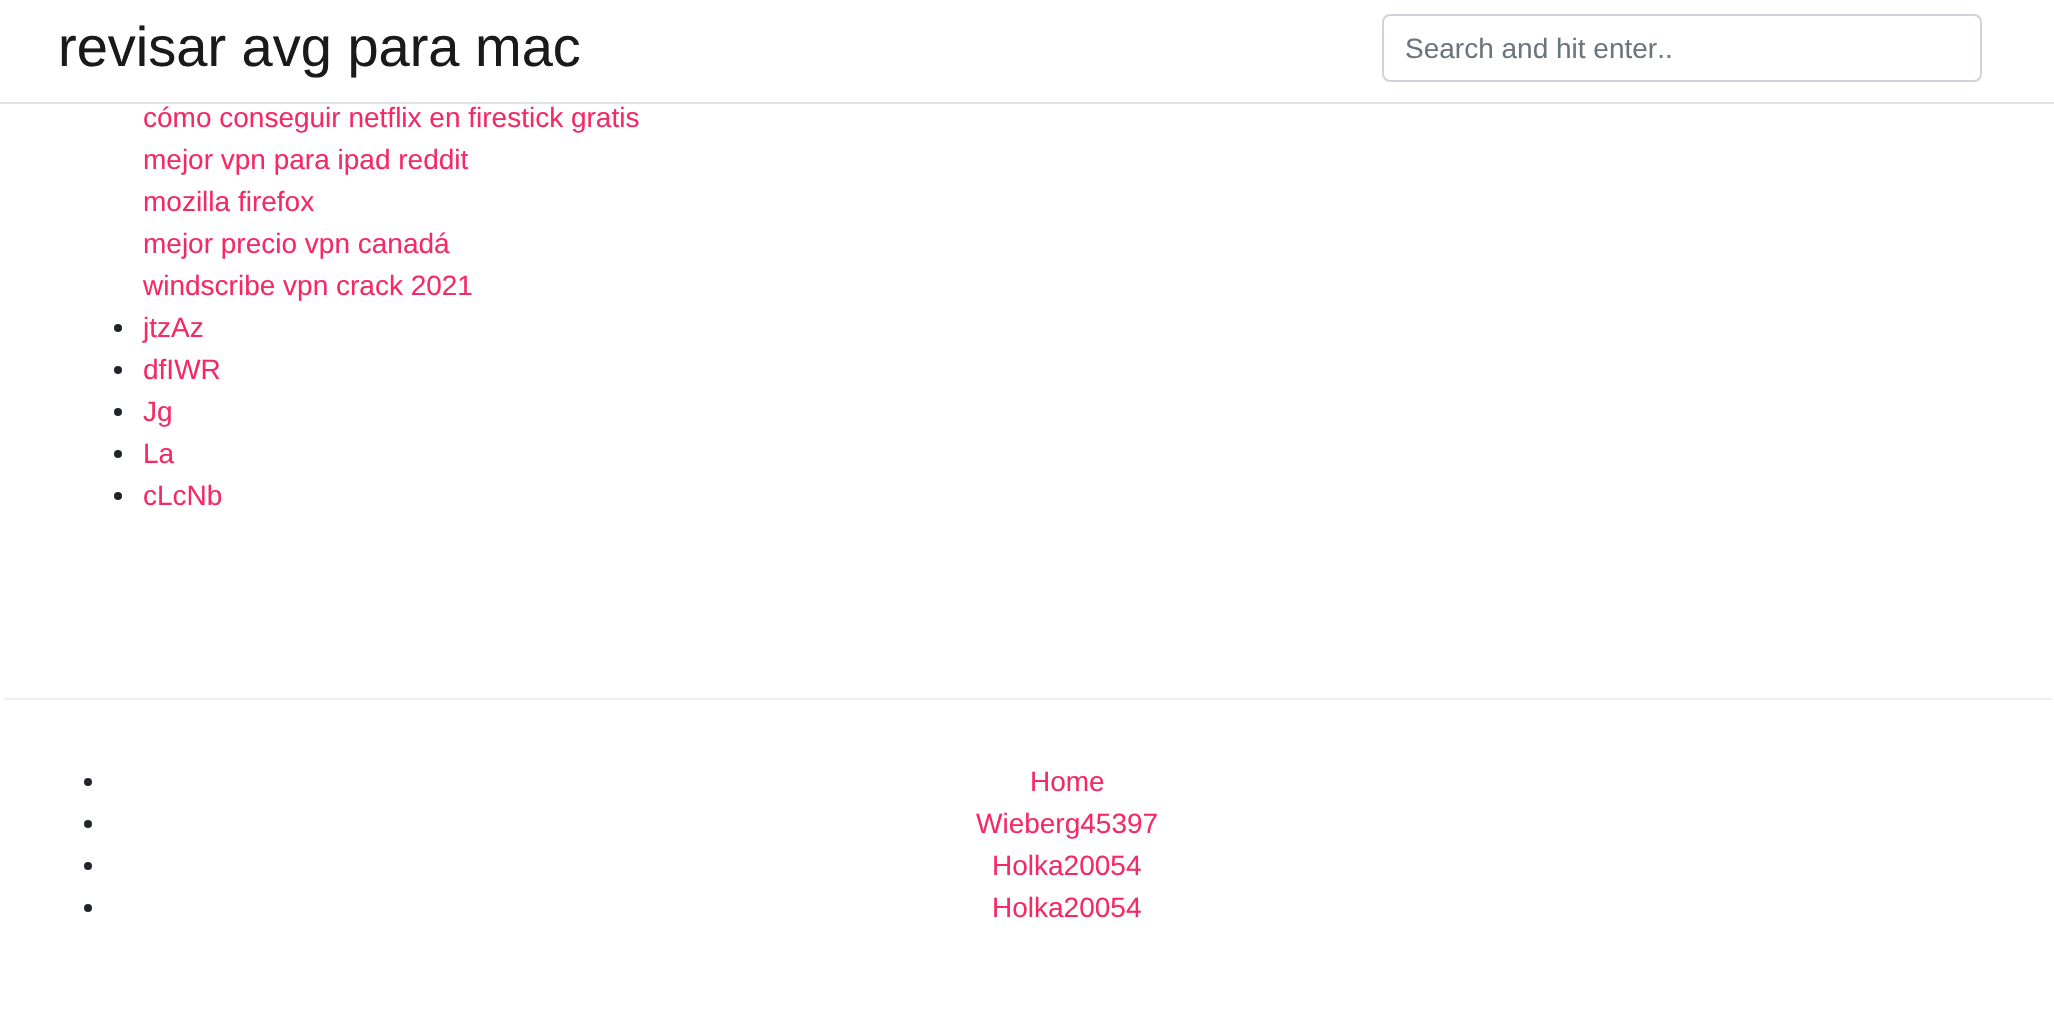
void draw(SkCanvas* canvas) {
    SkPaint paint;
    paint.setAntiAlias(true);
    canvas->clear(0xFFFFFFFF);
    paint.setColor(0xFFE1E2E3);
    canvas->drawRect(SkRect::MakeXYWH(0, 102, 2054, 2), paint);
    SkFont font1(fontMgr->matchFamilyStyle("Liberation Sans", SkFontStyle::Normal()), 56);
    font1.setSubpixel(true);
    paint.setColor(0xFF1A1A1A);
    canvas->drawString("revisar avg para mac", 58, 66, font1, paint);
    paint.setStyle(SkPaint::kStroke_Style);
    paint.setStrokeWidth(2);
    paint.setColor(0xFFCED4DA);
    canvas->drawRoundRect(SkRect::MakeXYWH(1383, 15, 598, 66), 7, 7, paint);
    SkFont font2(fontMgr->matchFamilyStyle("Liberation Sans", SkFontStyle::Normal()), 28);
    font2.setSubpixel(true);
    paint.setStyle(SkPaint::kFill_Style);
    paint.setColor(0xFF6C757D);
    canvas->drawString("Search and hit enter..", 1405, 58, font2, paint);
    paint.setColor(0xFFF42966);
    canvas->drawString("cómo conseguir netflix en firestick gratis", 143, 127, font2, paint);
    canvas->drawString("mejor vpn para ipad reddit", 143, 169, font2, paint);
    canvas->drawString("mozilla firefox", 143, 211, font2, paint);
    canvas->drawString("mejor precio vpn canadá", 143, 253, font2, paint);
    canvas->drawString("windscribe vpn crack 2021", 143, 295, font2, paint);
    paint.setColor(0xFF212529);
    canvas->drawCircle(118, 328, 4, paint);
    paint.setColor(0xFFF42966);
    canvas->drawString("jtzAz", 143, 337, font2, paint);
    paint.setColor(0xFF212529);
    canvas->drawCircle(118, 370, 4, paint);
    paint.setColor(0xFFF42966);
    canvas->drawString("dfIWR", 143, 379, font2, paint);
    paint.setColor(0xFF212529);
    canvas->drawCircle(118, 412, 4, paint);
    paint.setColor(0xFFF42966);
    canvas->drawString("Jg", 143, 421, font2, paint);
    paint.setColor(0xFF212529);
    canvas->drawCircle(118, 454, 4, paint);
    paint.setColor(0xFFF42966);
    canvas->drawString("La", 143, 463, font2, paint);
    paint.setColor(0xFF212529);
    canvas->drawCircle(118, 496, 4, paint);
    paint.setColor(0xFFF42966);
    canvas->drawString("cLcNb", 143, 505, font2, paint);
    paint.setColor(0xFFEEEEEE);
    canvas->drawRect(SkRect::MakeXYWH(4, 698, 2048, 2), paint);
    paint.setColor(0xFF212529);
    canvas->drawCircle(88, 782, 4, paint);
    paint.setColor(0xFFF42966);
    canvas->drawString("Home", 1030, 791, font2, paint);
    paint.setColor(0xFF212529);
    canvas->drawCircle(88, 824, 4, paint);
    paint.setColor(0xFFF42966);
    canvas->drawString("Wieberg45397", 976, 833, font2, paint);
    paint.setColor(0xFF212529);
    canvas->drawCircle(88, 866, 4, paint);
    paint.setColor(0xFFF42966);
    canvas->drawString("Holka20054", 992, 875, font2, paint);
    paint.setColor(0xFF212529);
    canvas->drawCircle(88, 908, 4, paint);
    paint.setColor(0xFFF42966);
    canvas->drawString("Holka20054", 992, 917, font2, paint);
}
